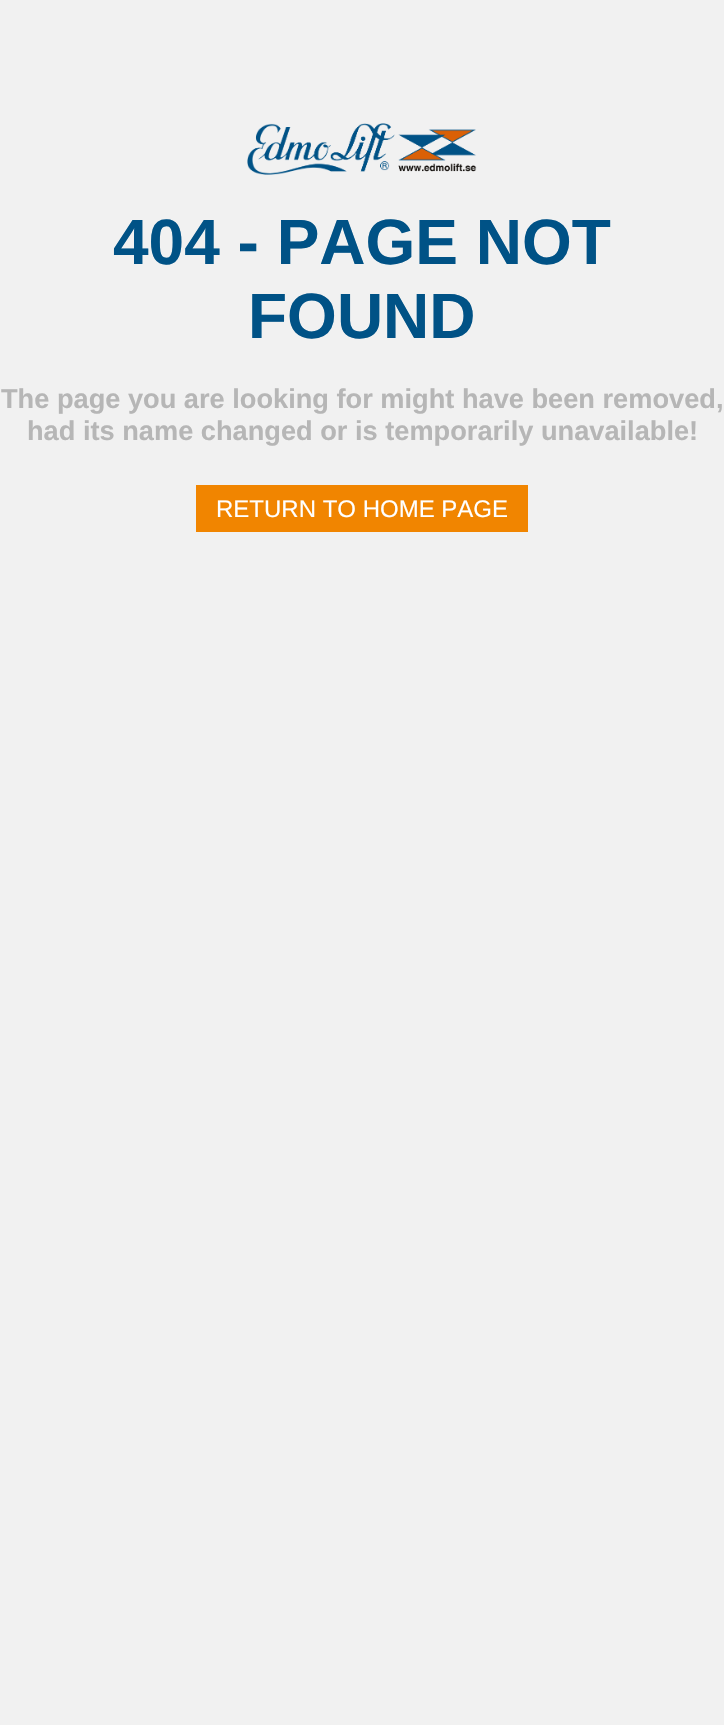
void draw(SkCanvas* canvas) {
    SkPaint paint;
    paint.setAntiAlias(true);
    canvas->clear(0xFFF1F1F1);
    canvas->drawImageRect(SkImages::DeferredFromEncodedData(SkData::MakeFromFileName("img1.png")), SkRect::MakeXYWH(247, 123, 230, 52), SkSamplingOptions());
    SkFont font1(fontMgr->matchFamilyStyle("Liberation Sans", SkFontStyle::Bold()), 64);
    font1.setSubpixel(true);
    paint.setColor(0xFF005286);
    canvas->drawString("404 - PAGE NOT", 113, 264, font1, paint);
    canvas->drawString("FOUND", 248, 338, font1, paint);
    SkFont font2(fontMgr->matchFamilyStyle("Liberation Sans", SkFontStyle::Bold()), 27.2f);
    font2.setSubpixel(true);
    paint.setColor(0xFFB6B6B6);
    canvas->drawString("The page you are looking for might have been removed,", 1, 408, font2, paint);
    canvas->drawString("had its name changed or is temporarily unavailable!", 27, 440, font2, paint);
    paint.setColor(0xFFF18500);
    canvas->drawRect(SkRect::MakeXYWH(196, 485, 332, 47), paint);
    SkFont font3(fontMgr->matchFamilyStyle("Liberation Sans", SkFontStyle::Normal()), 24);
    font3.setSubpixel(true);
    paint.setColor(0xFFFFFFFF);
    canvas->drawString("RETURN TO HOME PAGE", 216, 517, font3, paint);
}
